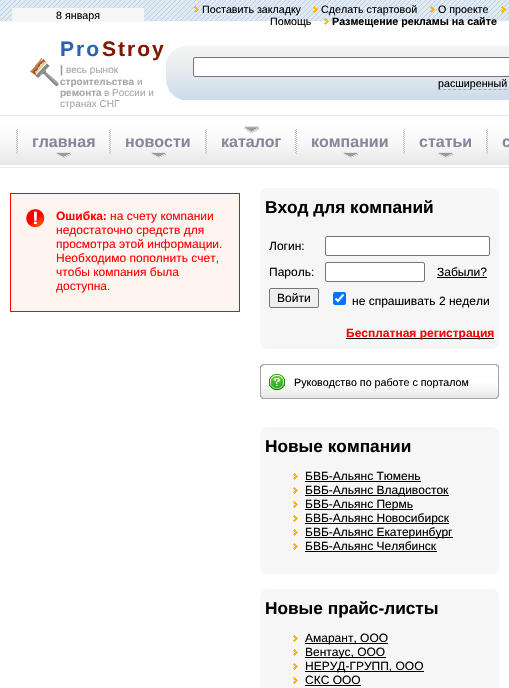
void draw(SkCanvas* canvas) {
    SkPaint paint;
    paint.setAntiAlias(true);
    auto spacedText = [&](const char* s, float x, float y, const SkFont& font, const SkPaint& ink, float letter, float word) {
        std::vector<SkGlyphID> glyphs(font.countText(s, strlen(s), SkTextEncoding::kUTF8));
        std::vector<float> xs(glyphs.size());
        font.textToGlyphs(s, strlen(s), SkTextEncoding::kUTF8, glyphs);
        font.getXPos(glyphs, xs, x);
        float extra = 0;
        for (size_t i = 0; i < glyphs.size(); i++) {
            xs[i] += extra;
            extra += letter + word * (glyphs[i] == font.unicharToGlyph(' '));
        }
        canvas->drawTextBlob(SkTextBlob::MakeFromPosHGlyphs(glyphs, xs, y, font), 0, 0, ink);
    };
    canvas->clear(0xFFFFFFFF);
    canvas->drawImageRect(SkImages::DeferredFromEncodedData(SkData::MakeFromFileName("img1.png")), SkRect::MakeXYWH(0, 0, 509, 21), SkSamplingOptions());
    paint.setColor(0xFFF6F6F6);
    canvas->drawRect(SkRect::MakeXYWH(12, 8, 132, 14), paint);
    SkFont font1(fontMgr->matchFamilyStyle("Liberation Sans", SkFontStyle::Normal()), 10.7f);
    font1.setSubpixel(true);
    paint.setColor(0xFF000000);
    canvas->drawString("8 января", 56, 19, font1, paint);
    canvas->drawImageRect(SkImages::DeferredFromEncodedData(SkData::MakeFromFileName("img2.png")), SkRect::MakeXYWH(194, 6, 5, 7), SkSamplingOptions());
    canvas->drawString("Поставить закладку", 202, 13, font1, paint);
    canvas->drawImageRect(SkImages::DeferredFromEncodedData(SkData::MakeFromFileName("img3.png")), SkRect::MakeXYWH(313, 6, 5, 7), SkSamplingOptions());
    canvas->drawString("Сделать стартовой", 321, 13, font1, paint);
    canvas->drawImageRect(SkImages::DeferredFromEncodedData(SkData::MakeFromFileName("img4.png")), SkRect::MakeXYWH(430, 6, 5, 7), SkSamplingOptions());
    canvas->drawString("О проекте", 438, 13, font1, paint);
    canvas->drawImageRect(SkImages::DeferredFromEncodedData(SkData::MakeFromFileName("img5.png")), SkRect::MakeXYWH(501, 6, 5, 7), SkSamplingOptions());
    canvas->drawString("Помощь", 270, 25, font1, paint);
    canvas->drawImageRect(SkImages::DeferredFromEncodedData(SkData::MakeFromFileName("img6.png")), SkRect::MakeXYWH(324, 18, 5, 7), SkSamplingOptions());
    SkFont font2(fontMgr->matchFamilyStyle("Liberation Sans", SkFontStyle::Bold()), 10.7f);
    font2.setSubpixel(true);
    canvas->drawString("Размещение рекламы на сайте", 332, 25, font2, paint);
    canvas->drawImageRect(SkImages::DeferredFromEncodedData(SkData::MakeFromFileName("img7.png")), SkRect::MakeXYWH(30, 58, 29, 28), SkSamplingOptions());
    SkFont font3(fontMgr->matchFamilyStyle("Liberation Sans", SkFontStyle::Bold()), 21);
    font3.setSubpixel(true);
    paint.setColor(0xFF2D62B2);
    spacedText("Pro", 60, 56, font3, paint, 2, 0);
    paint.setColor(0xFF801900);
    spacedText("Stroy", 102, 56, font3, paint, 2, 0);
    paint.setColor(0xFF979797);
    canvas->drawString("|", 60, 73, font2, paint);
    SkFont font4(fontMgr->matchFamilyStyle("Liberation Sans", SkFontStyle::Normal()), 10);
    font4.setSubpixel(true);
    paint.setColor(0xFFA7A7A7);
    canvas->drawString("весь рынок", 66, 73, font4, paint);
    SkFont font5(fontMgr->matchFamilyStyle("Liberation Sans", SkFontStyle::Bold()), 10);
    font5.setSubpixel(true);
    canvas->drawString("строительства", 60, 85, font5, paint);
    canvas->drawString("и", 137, 85, font4, paint);
    canvas->drawString("ремонта", 60, 96, font5, paint);
    canvas->drawString("в России и", 104, 96, font4, paint);
    canvas->drawString("странах СНГ", 60, 107, font4, paint);
    canvas->drawImageRect(SkImages::DeferredFromEncodedData(SkData::MakeFromFileName("img8.png")), SkRect::MakeXYWH(166, 46, 18, 54), SkSamplingOptions());
    canvas->drawImageRect(SkImages::DeferredFromEncodedData(SkData::MakeFromFileName("img9.png")), SkRect::MakeXYWH(184, 46, 325, 54), SkSamplingOptions());
    paint.setColor(0xFFFFFFFF);
    canvas->drawRoundRect(SkRect::MakeXYWH(193.5f, 57.5f, 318, 19), 1.5f, 1.5f, paint);
    paint.setStyle(SkPaint::kStroke_Style);
    paint.setStrokeWidth(1);
    paint.setColor(0xFF767676);
    canvas->drawRoundRect(SkRect::MakeXYWH(193.5f, 57.5f, 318, 19), 1.5f, 1.5f, paint);
    paint.setColor(0xFFA7A7A7);
    paint.setPathEffect(SkDashPathEffect::Make({{3, 2.05f}}, 0));
    canvas->drawPath(SkPathBuilder().moveTo(438, 89.5f).lineTo(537, 89.5f).detach(), paint);
    paint.setPathEffect(nullptr);
    paint.setStyle(SkPaint::kFill_Style);
    paint.setColor(0xFF000000);
    canvas->drawString("расширенный", 438, 87, font1, paint);
    canvas->drawImageRect(SkImages::DeferredFromEncodedData(SkData::MakeFromFileName("img10.png")), SkRect::MakeXYWH(0, 115, 509, 53), SkSamplingOptions());
    canvas->drawImageRect(SkImages::DeferredFromEncodedData(SkData::MakeFromFileName("img11.png")), SkRect::MakeXYWH(16, 129, 2, 25), SkSamplingOptions());
    canvas->drawImageRect(SkImages::DeferredFromEncodedData(SkData::MakeFromFileName("img12.png")), SkRect::MakeXYWH(56, 152, 15, 6), SkSamplingOptions());
    SkFont font6(fontMgr->matchFamilyStyle("Liberation Sans", SkFontStyle::Bold()), 16);
    font6.setSubpixel(true);
    paint.setColor(0xFF87879B);
    canvas->drawString("главная", 32, 147, font6, paint);
    canvas->drawImageRect(SkImages::DeferredFromEncodedData(SkData::MakeFromFileName("img11.png")), SkRect::MakeXYWH(109, 129, 2, 25), SkSamplingOptions());
    canvas->drawImageRect(SkImages::DeferredFromEncodedData(SkData::MakeFromFileName("img12.png")), SkRect::MakeXYWH(151, 152, 15, 6), SkSamplingOptions());
    canvas->drawString("новости", 125, 147, font6, paint);
    canvas->drawImageRect(SkImages::DeferredFromEncodedData(SkData::MakeFromFileName("img11.png")), SkRect::MakeXYWH(205, 129, 2, 25), SkSamplingOptions());
    canvas->drawImageRect(SkImages::DeferredFromEncodedData(SkData::MakeFromFileName("img13.png")), SkRect::MakeXYWH(244, 126, 15, 7), SkSamplingOptions());
    canvas->drawString("каталог", 221, 147, font6, paint);
    canvas->drawImageRect(SkImages::DeferredFromEncodedData(SkData::MakeFromFileName("img11.png")), SkRect::MakeXYWH(295, 129, 2, 25), SkSamplingOptions());
    canvas->drawImageRect(SkImages::DeferredFromEncodedData(SkData::MakeFromFileName("img12.png")), SkRect::MakeXYWH(343, 152, 15, 6), SkSamplingOptions());
    canvas->drawString("компании", 311, 147, font6, paint);
    canvas->drawImageRect(SkImages::DeferredFromEncodedData(SkData::MakeFromFileName("img11.png")), SkRect::MakeXYWH(403, 129, 2, 25), SkSamplingOptions());
    canvas->drawImageRect(SkImages::DeferredFromEncodedData(SkData::MakeFromFileName("img12.png")), SkRect::MakeXYWH(438, 152, 15, 6), SkSamplingOptions());
    canvas->drawString("статьи", 419, 147, font6, paint);
    canvas->drawImageRect(SkImages::DeferredFromEncodedData(SkData::MakeFromFileName("img11.png")), SkRect::MakeXYWH(486, 129, 2, 25), SkSamplingOptions());
    canvas->drawString("с", 502, 147, font6, paint);
    paint.setColor(0xFFFFF4F0);
    canvas->drawRect(SkRect::MakeXYWH(11, 194, 228, 117), paint);
    canvas->drawImageRect(SkImages::DeferredFromEncodedData(SkData::MakeFromFileName("img14.png")), SkRect::MakeXYWH(26, 209, 19, 19), SkSamplingOptions());
    paint.setStyle(SkPaint::kStroke_Style);
    paint.setColor(0xFFFF0000);
    canvas->drawRect(SkRect::MakeXYWH(10.5f, 193.5f, 229, 118), paint);
    SkFont font7(fontMgr->matchFamilyStyle("Liberation Sans", SkFontStyle::Bold()), 12);
    font7.setSubpixel(true);
    paint.setStyle(SkPaint::kFill_Style);
    canvas->drawString("Ошибка:", 56, 220, font7, paint);
    SkFont font8(fontMgr->matchFamilyStyle("Liberation Sans", SkFontStyle::Normal()), 12);
    font8.setSubpixel(true);
    canvas->drawString("на счету компании", 110, 220, font8, paint);
    canvas->drawString("недостаточно средств для", 56, 234, font8, paint);
    canvas->drawString("просмотра этой информации.", 56, 248, font8, paint);
    canvas->drawString("Необходимо пополнить счет,", 56, 262, font8, paint);
    canvas->drawString("чтобы компания была", 56, 276, font8, paint);
    canvas->drawString("доступна.", 56, 290, font8, paint);
    paint.setColor(0xFFF6F6F6);
    canvas->drawRect(SkRect::MakeXYWH(265, 188, 229, 1), paint);
    canvas->drawRect(SkRect::MakeXYWH(263, 189, 233, 1), paint);
    canvas->drawRect(SkRect::MakeXYWH(262, 190, 235, 1), paint);
    canvas->drawRect(SkRect::MakeXYWH(261, 191, 237, 2), paint);
    canvas->drawRect(SkRect::MakeXYWH(260, 193, 239, 151), paint);
    SkFont font9(fontMgr->matchFamilyStyle("Liberation Sans", SkFontStyle::Bold()), 17.25f);
    font9.setSubpixel(true);
    paint.setColor(0xFF000000);
    canvas->drawString("Вход для компаний", 265, 213, font9, paint);
    canvas->drawString("Логин:", 269, 250, font8, paint);
    paint.setColor(0xFFFFFFFF);
    canvas->drawRoundRect(SkRect::MakeXYWH(325.5f, 236.5f, 164, 19), 1.5f, 1.5f, paint);
    paint.setStyle(SkPaint::kStroke_Style);
    paint.setColor(0xFF767676);
    canvas->drawRoundRect(SkRect::MakeXYWH(325.5f, 236.5f, 164, 19), 1.5f, 1.5f, paint);
    paint.setStyle(SkPaint::kFill_Style);
    paint.setColor(0xFF000000);
    canvas->drawString("Пароль:", 269, 276, font8, paint);
    paint.setColor(0xFFFFFFFF);
    canvas->drawRoundRect(SkRect::MakeXYWH(325.5f, 262.5f, 99, 19), 1.5f, 1.5f, paint);
    paint.setStyle(SkPaint::kStroke_Style);
    paint.setColor(0xFF767676);
    canvas->drawRoundRect(SkRect::MakeXYWH(325.5f, 262.5f, 99, 19), 1.5f, 1.5f, paint);
    paint.setStyle(SkPaint::kFill_Style);
    paint.setColor(0xFF000000);
    canvas->drawString("Забыли?", 437, 276, font8, paint);
    canvas->drawRect(SkRect::MakeXYWH(437, 277, 50, 1), paint);
    paint.setColor(0xFFEFEFEF);
    canvas->drawRoundRect(SkRect::MakeXYWH(269.5f, 288.5f, 49, 19), 1.5f, 1.5f, paint);
    paint.setStyle(SkPaint::kStroke_Style);
    paint.setColor(0xFF767676);
    canvas->drawRoundRect(SkRect::MakeXYWH(269.5f, 288.5f, 49, 19), 1.5f, 1.5f, paint);
    paint.setStyle(SkPaint::kFill_Style);
    paint.setColor(0xFF000000);
    canvas->drawString("Войти", 277, 302, font8, paint);
    paint.setColor(0xFF0075FF);
    canvas->drawRoundRect(SkRect::MakeXYWH(333, 292, 13, 13), 2, 2, paint);
    paint.setStyle(SkPaint::kStroke_Style);
    paint.setStrokeWidth(2.1f);
    paint.setColor(0xFFFFFFFF);
    canvas->drawPath(SkPathBuilder().moveTo(335.5f, 298.5f).lineTo(338, 301).lineTo(343.5f, 294.5f).detach(), paint);
    paint.setStyle(SkPaint::kFill_Style);
    paint.setColor(0xFF000000);
    canvas->drawString("не спрашивать 2 недели", 352, 305, font8, paint);
    canvas->drawRect(SkRect::MakeXYWH(346, 338, 148, 1), paint);
    paint.setColor(0xFFFF0000);
    canvas->drawString("Бесплатная регистрация", 346, 337, font7, paint);
    paint.setColor(0xFFF6F6F6);
    canvas->drawRect(SkRect::MakeXYWH(261, 344, 237, 2), paint);
    canvas->drawRect(SkRect::MakeXYWH(262, 346, 235, 1), paint);
    canvas->drawRect(SkRect::MakeXYWH(263, 347, 233, 1), paint);
    canvas->drawRect(SkRect::MakeXYWH(265, 348, 229, 1), paint);
    canvas->drawImageRect(SkImages::DeferredFromEncodedData(SkData::MakeFromFileName("img15.png")), SkRect::MakeXYWH(260, 364, 4, 35), SkSamplingOptions());
    canvas->drawImageRect(SkImages::DeferredFromEncodedData(SkData::MakeFromFileName("img16.png")), SkRect::MakeXYWH(264, 364, 25, 35), SkSamplingOptions());
    canvas->drawImageRect(SkImages::DeferredFromEncodedData(SkData::MakeFromFileName("img17.png")), SkRect::MakeXYWH(269, 374, 16, 16), SkSamplingOptions());
    canvas->drawImageRect(SkImages::DeferredFromEncodedData(SkData::MakeFromFileName("img18.png")), SkRect::MakeXYWH(289, 364, 206, 35), SkSamplingOptions());
    paint.setColor(0xFF000000);
    canvas->drawString("Руководство по работе с порталом", 294, 386, font1, paint);
    canvas->drawImageRect(SkImages::DeferredFromEncodedData(SkData::MakeFromFileName("img19.png")), SkRect::MakeXYWH(495, 364, 4, 35), SkSamplingOptions());
    paint.setColor(0xFFF6F6F6);
    canvas->drawRect(SkRect::MakeXYWH(265, 427, 229, 1), paint);
    canvas->drawRect(SkRect::MakeXYWH(263, 428, 233, 1), paint);
    canvas->drawRect(SkRect::MakeXYWH(262, 429, 235, 1), paint);
    canvas->drawRect(SkRect::MakeXYWH(261, 430, 237, 2), paint);
    canvas->drawRect(SkRect::MakeXYWH(260, 432, 239, 137), paint);
    paint.setColor(0xFF000000);
    canvas->drawString("Новые компании", 265, 452, font9, paint);
    canvas->drawImageRect(SkImages::DeferredFromEncodedData(SkData::MakeFromFileName("img20.png")), SkRect::MakeXYWH(293, 473, 5, 7), SkSamplingOptions());
    canvas->drawString("БВБ-Альянс Тюмень", 305, 480, font8, paint);
    canvas->drawRect(SkRect::MakeXYWH(305, 481, 116, 1), paint);
    canvas->drawImageRect(SkImages::DeferredFromEncodedData(SkData::MakeFromFileName("img20.png")), SkRect::MakeXYWH(293, 487, 5, 7), SkSamplingOptions());
    canvas->drawRect(SkRect::MakeXYWH(305, 495, 144, 1), paint);
    canvas->drawString("БВБ-Альянс Владивосток", 305, 494, font8, paint);
    canvas->drawImageRect(SkImages::DeferredFromEncodedData(SkData::MakeFromFileName("img20.png")), SkRect::MakeXYWH(293, 501, 5, 7), SkSamplingOptions());
    canvas->drawRect(SkRect::MakeXYWH(305, 509, 108, 1), paint);
    canvas->drawString("БВБ-Альянс Пермь", 305, 508, font8, paint);
    canvas->drawImageRect(SkImages::DeferredFromEncodedData(SkData::MakeFromFileName("img20.png")), SkRect::MakeXYWH(293, 515, 5, 7), SkSamplingOptions());
    canvas->drawRect(SkRect::MakeXYWH(305, 523, 144, 1), paint);
    canvas->drawString("БВБ-Альянс Новосибирск", 305, 522, font8, paint);
    canvas->drawImageRect(SkImages::DeferredFromEncodedData(SkData::MakeFromFileName("img20.png")), SkRect::MakeXYWH(293, 529, 5, 7), SkSamplingOptions());
    canvas->drawRect(SkRect::MakeXYWH(305, 537, 148, 1), paint);
    canvas->drawString("БВБ-Альянс Екатеринбург", 305, 536, font8, paint);
    canvas->drawImageRect(SkImages::DeferredFromEncodedData(SkData::MakeFromFileName("img20.png")), SkRect::MakeXYWH(293, 543, 5, 7), SkSamplingOptions());
    canvas->drawString("БВБ-Альянс Челябинск", 305, 550, font8, paint);
    canvas->drawRect(SkRect::MakeXYWH(305, 551, 132, 1), paint);
    paint.setColor(0xFFF6F6F6);
    canvas->drawRect(SkRect::MakeXYWH(261, 569, 237, 2), paint);
    canvas->drawRect(SkRect::MakeXYWH(262, 571, 235, 1), paint);
    canvas->drawRect(SkRect::MakeXYWH(263, 572, 233, 1), paint);
    canvas->drawRect(SkRect::MakeXYWH(265, 573, 229, 1), paint);
    canvas->drawRect(SkRect::MakeXYWH(265, 589, 229, 1), paint);
    canvas->drawRect(SkRect::MakeXYWH(263, 590, 233, 1), paint);
    canvas->drawRect(SkRect::MakeXYWH(262, 591, 235, 1), paint);
    canvas->drawRect(SkRect::MakeXYWH(261, 592, 237, 2), paint);
    canvas->drawRect(SkRect::MakeXYWH(260, 594, 239, 94), paint);
    paint.setColor(0xFF000000);
    canvas->drawString("Новые прайс-листы", 265, 614, font9, paint);
    canvas->drawImageRect(SkImages::DeferredFromEncodedData(SkData::MakeFromFileName("img20.png")), SkRect::MakeXYWH(293, 635, 5, 7), SkSamplingOptions());
    canvas->drawRect(SkRect::MakeXYWH(305, 643, 83, 1), paint);
    canvas->drawString("Амарант, ООО", 305, 642, font8, paint);
    canvas->drawImageRect(SkImages::DeferredFromEncodedData(SkData::MakeFromFileName("img20.png")), SkRect::MakeXYWH(293, 649, 5, 7), SkSamplingOptions());
    canvas->drawRect(SkRect::MakeXYWH(305, 657, 81, 1), paint);
    canvas->drawString("Вентаус, ООО", 305, 656, font8, paint);
    canvas->drawImageRect(SkImages::DeferredFromEncodedData(SkData::MakeFromFileName("img20.png")), SkRect::MakeXYWH(293, 663, 5, 7), SkSamplingOptions());
    canvas->drawRect(SkRect::MakeXYWH(305, 671, 119, 1), paint);
    canvas->drawString("НЕРУД-ГРУПП, ООО", 305, 670, font8, paint);
    canvas->drawImageRect(SkImages::DeferredFromEncodedData(SkData::MakeFromFileName("img20.png")), SkRect::MakeXYWH(293, 677, 5, 7), SkSamplingOptions());
    canvas->drawString("СКС ООО", 305, 684, font8, paint);
    canvas->drawRect(SkRect::MakeXYWH(305, 685, 56, 1), paint);
}
